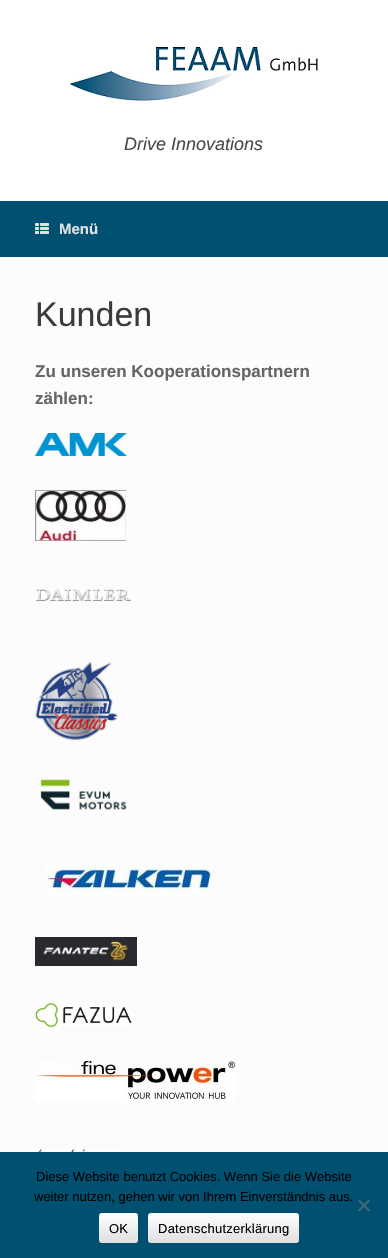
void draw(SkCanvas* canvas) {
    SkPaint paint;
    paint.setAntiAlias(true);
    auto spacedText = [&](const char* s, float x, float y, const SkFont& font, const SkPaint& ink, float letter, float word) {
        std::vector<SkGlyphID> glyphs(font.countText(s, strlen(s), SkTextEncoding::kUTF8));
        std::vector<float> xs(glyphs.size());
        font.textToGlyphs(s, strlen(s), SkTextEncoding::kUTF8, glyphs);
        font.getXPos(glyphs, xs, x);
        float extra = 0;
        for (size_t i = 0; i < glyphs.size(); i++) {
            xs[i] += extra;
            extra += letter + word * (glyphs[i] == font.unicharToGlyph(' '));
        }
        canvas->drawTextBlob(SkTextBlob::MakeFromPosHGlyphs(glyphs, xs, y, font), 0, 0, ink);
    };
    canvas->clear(0xFFFFFFFF);
    canvas->drawImageRect(SkImages::DeferredFromEncodedData(SkData::MakeFromFileName("img1.png")), SkRect::MakeXYWH(69, 47, 249, 54), SkSamplingOptions());
    SkFont font1(fontMgr->matchFamilyStyle("Liberation Sans", SkFontStyle::Italic()), 18);
    font1.setSubpixel(true);
    paint.setColor(0xFF4B4B4B);
    canvas->drawString("Drive Innovations", 124, 150, font1, paint);
    paint.setColor(0xFF005071);
    canvas->drawRect(SkRect::MakeXYWH(0, 201, 388, 56), paint);
    canvas->drawImageRect(SkImages::DeferredFromEncodedData(SkData::MakeFromFileName("img2.png")), SkRect::MakeXYWH(35, 223, 14, 11), SkSamplingOptions());
    SkFont font2(fontMgr->matchFamilyStyle("Liberation Sans", SkFontStyle::Bold()), 15);
    font2.setSubpixel(true);
    paint.setColor(0xFFE2E2E2);
    canvas->drawString("Menü", 59, 234, font2, paint);
    paint.setColor(0xFFFCFCFC);
    canvas->drawRect(SkRect::MakeXYWH(0, 257, 388, 895), paint);
    SkFont font3(fontMgr->matchFamilyStyle("Liberation Sans", SkFontStyle::Normal()), 34);
    font3.setSubpixel(true);
    paint.setColor(0xFF3B3B3B);
    canvas->drawString("Kunden", 35, 326, font3, paint);
    SkFont font4(fontMgr->matchFamilyStyle("Liberation Sans", SkFontStyle::Bold()), 17);
    font4.setSubpixel(true);
    paint.setColor(0xFF666666);
    canvas->drawString("Zu unseren Kooperationspartnern", 35, 377, font4, paint);
    canvas->drawString("zählen:", 35, 404, font4, paint);
    canvas->drawImageRect(SkImages::DeferredFromEncodedData(SkData::MakeFromFileName("img3.png")), SkRect::MakeXYWH(35, 433, 92, 23), SkSamplingOptions());
    canvas->drawImageRect(SkImages::DeferredFromEncodedData(SkData::MakeFromFileName("img4.png")), SkRect::MakeXYWH(35, 490, 91, 51), SkSamplingOptions());
    canvas->drawImageRect(SkImages::DeferredFromEncodedData(SkData::MakeFromFileName("img5.png")), SkRect::MakeXYWH(36, 589, 95, 13), SkSamplingOptions());
    canvas->drawImageRect(SkImages::DeferredFromEncodedData(SkData::MakeFromFileName("img6.png")), SkRect::MakeXYWH(35, 662, 83, 78), SkSamplingOptions());
    canvas->drawImageRect(SkImages::DeferredFromEncodedData(SkData::MakeFromFileName("img7.png")), SkRect::MakeXYWH(40, 779, 87, 31), SkSamplingOptions());
    canvas->drawImageRect(SkImages::DeferredFromEncodedData(SkData::MakeFromFileName("img8.png")), SkRect::MakeXYWH(46, 864, 166, 33), SkSamplingOptions());
    canvas->drawImageRect(SkImages::DeferredFromEncodedData(SkData::MakeFromFileName("img9.png")), SkRect::MakeXYWH(35, 937, 102, 29), SkSamplingOptions());
    canvas->drawImageRect(SkImages::DeferredFromEncodedData(SkData::MakeFromFileName("img10.png")), SkRect::MakeXYWH(35, 1003, 97, 24), SkSamplingOptions());
    canvas->drawImageRect(SkImages::DeferredFromEncodedData(SkData::MakeFromFileName("img11.png")), SkRect::MakeXYWH(35, 1061, 200, 40), SkSamplingOptions());
    canvas->drawImageRect(SkImages::DeferredFromEncodedData(SkData::MakeFromFileName("img12.png")), SkRect::MakeXYWH(35, 1149, 89, 3), SkSamplingOptions());
    paint.setColor(0xFF005071);
    canvas->drawRect(SkRect::MakeXYWH(0, 1152, 388, 106), paint);
    SkFont font5(fontMgr->matchFamilyStyle("Liberation Sans", SkFontStyle::Normal()), 13);
    font5.setSubpixel(true);
    paint.setColor(0xFF000000);
    canvas->drawString("Diese Website benutzt Cookies. Wenn Sie die Website", 36, 1181, font5, paint);
    canvas->drawString("weiter nutzen, gehen wir von Ihrem Einverständnis aus.", 34, 1201, font5, paint);
    paint.setColor(0xFF406879);
    canvas->drawPath(SkPathBuilder().moveTo(368.5f, 1199.5f).lineTo(370, 1201).lineTo(359.5f, 1211.5f).lineTo(358, 1210).close().detach(), paint);
    canvas->drawPath(SkPathBuilder().moveTo(358, 1201).lineTo(359.5f, 1199.5f).lineTo(370, 1210).lineTo(368.5f, 1211.5f).close().detach(), paint);
    {
        const SkColor colors[] = {0xFFDFDFDF, 0xFFFFFFFF};
        const float stops[] = {0, 1};
        const SkPoint ends[] = {{99, 1243}, {99, 1213}};
        paint.setShader(SkGradientShader::MakeLinear(ends, colors, stops, 2, SkTileMode::kClamp));
        paint.setAlpha(255);
    }
    canvas->drawRoundRect(SkRect::MakeXYWH(99, 1213, 39, 30), 3, 3, paint);
    paint.setShader(nullptr);
    paint.setColor(0xFF000000);
    spacedText("OK", 109, 1233, font5, paint, 0.25f, 0);
    {
        const SkColor colors[] = {0xFFDFDFDF, 0xFFFFFFFF};
        const float stops[] = {0, 1};
        const SkPoint ends[] = {{148, 1243}, {148, 1213}};
        paint.setShader(SkGradientShader::MakeLinear(ends, colors, stops, 2, SkTileMode::kClamp));
        paint.setAlpha(255);
    }
    canvas->drawRoundRect(SkRect::MakeXYWH(148, 1213, 151, 30), 3, 3, paint);
    paint.setShader(nullptr);
    paint.setColor(0xFF000000);
    spacedText("Datenschutzerklärung", 158, 1233, font5, paint, 0.25f, 0);
}
